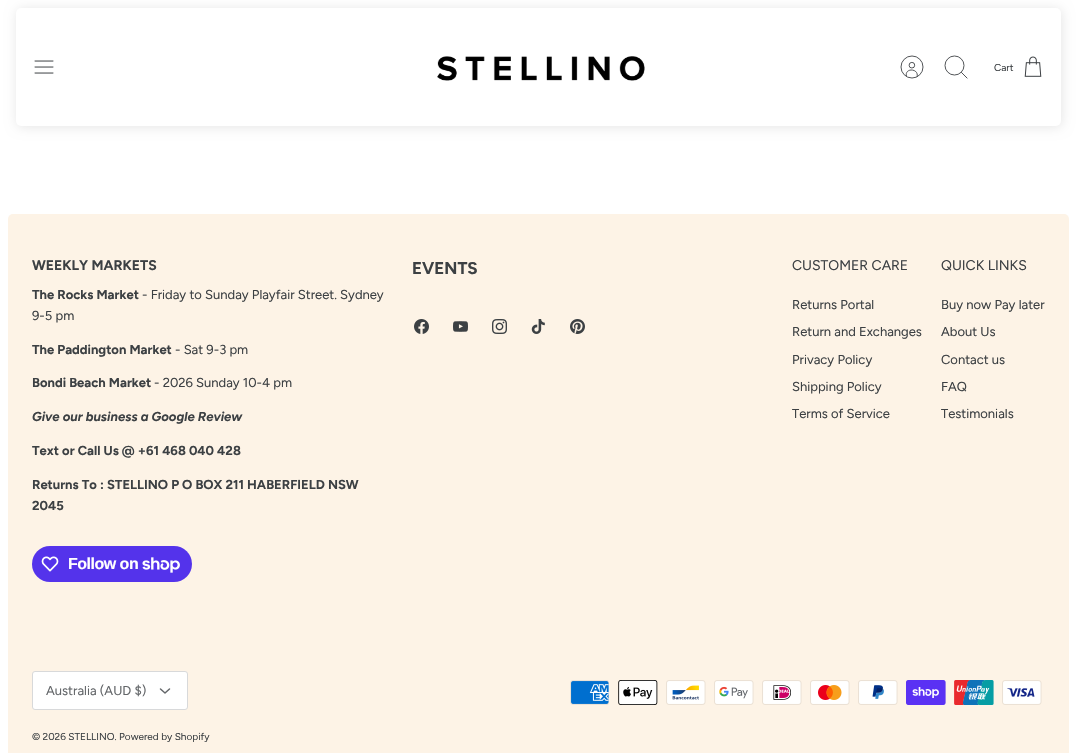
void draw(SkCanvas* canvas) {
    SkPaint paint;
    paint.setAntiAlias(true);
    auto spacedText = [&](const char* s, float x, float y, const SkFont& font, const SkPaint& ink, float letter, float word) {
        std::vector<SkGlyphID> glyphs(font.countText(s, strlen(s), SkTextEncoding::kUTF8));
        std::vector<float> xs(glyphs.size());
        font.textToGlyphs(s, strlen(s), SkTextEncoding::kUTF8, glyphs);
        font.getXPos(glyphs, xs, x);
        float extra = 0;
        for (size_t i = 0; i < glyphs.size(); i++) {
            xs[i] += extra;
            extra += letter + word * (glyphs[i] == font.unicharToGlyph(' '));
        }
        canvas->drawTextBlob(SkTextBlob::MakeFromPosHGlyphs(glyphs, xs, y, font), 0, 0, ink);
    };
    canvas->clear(0xFFFFFFFF);
    paint.setColor(0x1A000000);
    paint.setMaskFilter(SkMaskFilter::MakeBlur(kNormal_SkBlurStyle, 6));
    canvas->drawRoundRect(SkRect::MakeXYWH(17, 9, 1045, 118), 5, 5, paint);
    paint.setMaskFilter(nullptr);
    paint.setColor(0xFFFFFFFF);
    canvas->drawRoundRect(SkRect::MakeXYWH(16, 8, 1045, 118), 5, 5, paint);
    canvas->drawImageRect(SkImages::DeferredFromEncodedData(SkData::MakeFromFileName("img1.png")), SkRect::MakeXYWH(34, 60, 20, 14), SkSamplingOptions());
    canvas->drawImageRect(SkImages::DeferredFromEncodedData(SkData::MakeFromFileName("img2.png")), SkRect::MakeXYWH(437, 56, 208, 25), SkSamplingOptions());
    paint.setStyle(SkPaint::kStroke_Style);
    paint.setStrokeWidth(0.9f);
    paint.setColor(0xFF3C4043);
    canvas->drawPath(SkPathBuilder().moveTo(917, 77).cubicTo(919.5f, 68, 904, 67.5f, 906.5f, 76.5f).detach(), paint);
    canvas->drawCircle(911.9f, 65.2f, 2.8f, paint);
    canvas->drawCircle(912, 67, 11, paint);
    canvas->drawCircle(954.5f, 65.5f, 9.5f, paint);
    paint.setStrokeCap(SkPaint::kSquare_Cap);
    canvas->drawPath(SkPathBuilder().moveTo(961.5f, 72.5f).lineTo(967, 78).detach(), paint);
    SkFont font1(fontMgr->matchFamilyStyle("Figtree", SkFontStyle::Normal()), 10);
    font1.setSubpixel(true);
    paint.setStyle(SkPaint::kFill_Style);
    canvas->drawString("Cart", 994, 71, font1, paint);
    canvas->drawImageRect(SkImages::DeferredFromEncodedData(SkData::MakeFromFileName("img3.png")), SkRect::MakeXYWH(1024, 56, 18, 21), SkSamplingOptions());
    paint.setColor(0xFFFDF3E6);
    canvas->drawRoundRect(SkRect::MakeXYWH(8, 214, 1061, 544), 5, 5, paint);
    SkFont font2(fontMgr->matchFamilyStyle("Figtree", SkFontStyle::Bold()), 14);
    font2.setSubpixel(true);
    paint.setColor(0xFF3C4043);
    canvas->drawString("WEEKLY MARKETS", 32, 270, font2, paint);
    SkFont font3(fontMgr->matchFamilyStyle("Figtree", SkFontStyle::Bold()), 13);
    font3.setSubpixel(true);
    canvas->drawString("The Rocks Market", 32, 299, font3, paint);
    SkFont font4(fontMgr->matchFamilyStyle("Figtree", SkFontStyle::Normal()), 13);
    font4.setSubpixel(true);
    canvas->drawString("- Friday to Sunday Playfair Street. Sydney", 142, 299, font4, paint);
    canvas->drawString("9-5 pm", 32, 320, font4, paint);
    canvas->drawString("The Paddington Market", 32, 354, font3, paint);
    canvas->drawString("- Sat 9-3 pm", 175, 354, font4, paint);
    canvas->drawString("Bondi Beach Market", 32, 387, font3, paint);
    canvas->drawString("- 2026 Sunday 10-4 pm", 154, 387, font4, paint);
    SkFont font5(fontMgr->matchFamilyStyle("Figtree", SkFontStyle::BoldItalic()), 13);
    font5.setSubpixel(true);
    canvas->drawString("Give our business a Google Review", 32, 421, font5, paint);
    canvas->drawString("Text or Call Us @ +61 468 040 428", 32, 455, font3, paint);
    canvas->drawString("Returns To : STELLINO P O BOX 211 HABERFIELD NSW", 32, 489, font3, paint);
    canvas->drawString("2045", 32, 510, font3, paint);
    paint.setColor(0xFF5433EB);
    canvas->drawRoundRect(SkRect::MakeXYWH(32, 546, 160, 36), 18, 18, paint);
    canvas->drawImageRect(SkImages::DeferredFromEncodedData(SkData::MakeFromFileName("img4.png")), SkRect::MakeXYWH(41, 556, 18, 16), SkSamplingOptions());
    SkFont font6(fontMgr->matchFamilyStyle("Liberation Sans", SkFontStyle::Bold()), 16);
    font6.setSubpixel(true);
    paint.setColor(0xFFFFFFFF);
    spacedText("Follow on", 68, 569, font6, paint, -0.5f, 0);
    canvas->drawImageRect(SkImages::DeferredFromEncodedData(SkData::MakeFromFileName("img5.png")), SkRect::MakeXYWH(142, 557, 38, 16), SkSamplingOptions());
    SkFont font7(fontMgr->matchFamilyStyle("Figtree", SkFontStyle::Bold()), 17);
    font7.setSubpixel(true);
    paint.setColor(0xFF3C4043);
    canvas->drawString("EVENTS", 412, 274, font7, paint);
    canvas->drawImageRect(SkImages::DeferredFromEncodedData(SkData::MakeFromFileName("img6.png")), SkRect::MakeXYWH(414, 319, 15, 15), SkSamplingOptions());
    canvas->drawImageRect(SkImages::DeferredFromEncodedData(SkData::MakeFromFileName("img7.png")), SkRect::MakeXYWH(453, 321, 15, 11), SkSamplingOptions());
    canvas->drawImageRect(SkImages::DeferredFromEncodedData(SkData::MakeFromFileName("img8.png")), SkRect::MakeXYWH(492, 319, 15, 15), SkSamplingOptions());
    canvas->drawImageRect(SkImages::DeferredFromEncodedData(SkData::MakeFromFileName("img9.png")), SkRect::MakeXYWH(531, 319, 14, 15), SkSamplingOptions());
    canvas->drawImageRect(SkImages::DeferredFromEncodedData(SkData::MakeFromFileName("img10.png")), SkRect::MakeXYWH(570, 319, 15, 15), SkSamplingOptions());
    SkFont font8(fontMgr->matchFamilyStyle("Figtree", SkFontStyle::Normal()), 14);
    font8.setSubpixel(true);
    canvas->drawString("CUSTOMER CARE", 792, 270, font8, paint);
    canvas->drawString("Returns Portal", 792, 309, font4, paint);
    canvas->drawString("Return and Exchanges", 792, 336, font4, paint);
    canvas->drawString("Privacy Policy", 792, 364, font4, paint);
    canvas->drawString("Shipping Policy", 792, 391, font4, paint);
    canvas->drawString("Terms of Service", 792, 418, font4, paint);
    canvas->drawString("QUICK LINKS", 941, 270, font8, paint);
    canvas->drawString("Buy now Pay later", 941, 309, font4, paint);
    canvas->drawString("About Us", 941, 336, font4, paint);
    canvas->drawString("Contact us", 941, 364, font4, paint);
    canvas->drawString("FAQ", 941, 391, font4, paint);
    canvas->drawString("Testimonials", 941, 418, font4, paint);
    paint.setColor(0xFFFFFFFF);
    canvas->drawRoundRect(SkRect::MakeXYWH(32.5f, 671.5f, 155, 38), 2.5f, 2.5f, paint);
    paint.setStyle(SkPaint::kStroke_Style);
    paint.setStrokeWidth(1);
    paint.setStrokeCap(SkPaint::kButt_Cap);
    paint.setColor(0xFFD8D9DA);
    canvas->drawRoundRect(SkRect::MakeXYWH(32.5f, 671.5f, 155, 38), 2.5f, 2.5f, paint);
    paint.setStyle(SkPaint::kFill_Style);
    paint.setColor(0xFF636669);
    canvas->drawString("Australia (AUD $)", 46, 695, font4, paint);
    paint.setStyle(SkPaint::kStroke_Style);
    paint.setStrokeWidth(1.5f);
    paint.setStrokeCap(SkPaint::kRound_Cap);
    paint.setStrokeJoin(SkPaint::kRound_Join);
    canvas->drawPath(SkPathBuilder().moveTo(160.5f, 689).lineTo(165, 693).lineTo(169.5f, 689).detach(), paint);
    paint.setStyle(SkPaint::kFill_Style);
    paint.setColor(0xFF3C4043);
    canvas->drawString("© 2026 STELLINO. Powered by Shopify", 32, 740, font1, paint);
    canvas->drawImageRect(SkImages::DeferredFromEncodedData(SkData::MakeFromFileName("img11.png")), SkRect::MakeXYWH(570, 680, 39, 25), SkSamplingOptions());
    canvas->drawImageRect(SkImages::DeferredFromEncodedData(SkData::MakeFromFileName("img12.png")), SkRect::MakeXYWH(618, 680, 40, 25), SkSamplingOptions());
    canvas->drawImageRect(SkImages::DeferredFromEncodedData(SkData::MakeFromFileName("img13.png")), SkRect::MakeXYWH(666, 680, 40, 25), SkSamplingOptions());
    canvas->drawImageRect(SkImages::DeferredFromEncodedData(SkData::MakeFromFileName("img14.png")), SkRect::MakeXYWH(714, 680, 40, 25), SkSamplingOptions());
    canvas->drawImageRect(SkImages::DeferredFromEncodedData(SkData::MakeFromFileName("img15.png")), SkRect::MakeXYWH(762, 680, 40, 25), SkSamplingOptions());
    canvas->drawImageRect(SkImages::DeferredFromEncodedData(SkData::MakeFromFileName("img16.png")), SkRect::MakeXYWH(810, 680, 40, 25), SkSamplingOptions());
    canvas->drawImageRect(SkImages::DeferredFromEncodedData(SkData::MakeFromFileName("img17.png")), SkRect::MakeXYWH(858, 680, 40, 25), SkSamplingOptions());
    canvas->drawImageRect(SkImages::DeferredFromEncodedData(SkData::MakeFromFileName("img18.png")), SkRect::MakeXYWH(906, 680, 40, 25), SkSamplingOptions());
    canvas->drawImageRect(SkImages::DeferredFromEncodedData(SkData::MakeFromFileName("img19.png")), SkRect::MakeXYWH(954, 680, 40, 25), SkSamplingOptions());
    canvas->drawImageRect(SkImages::DeferredFromEncodedData(SkData::MakeFromFileName("img20.png")), SkRect::MakeXYWH(1002, 680, 40, 25), SkSamplingOptions());
}
